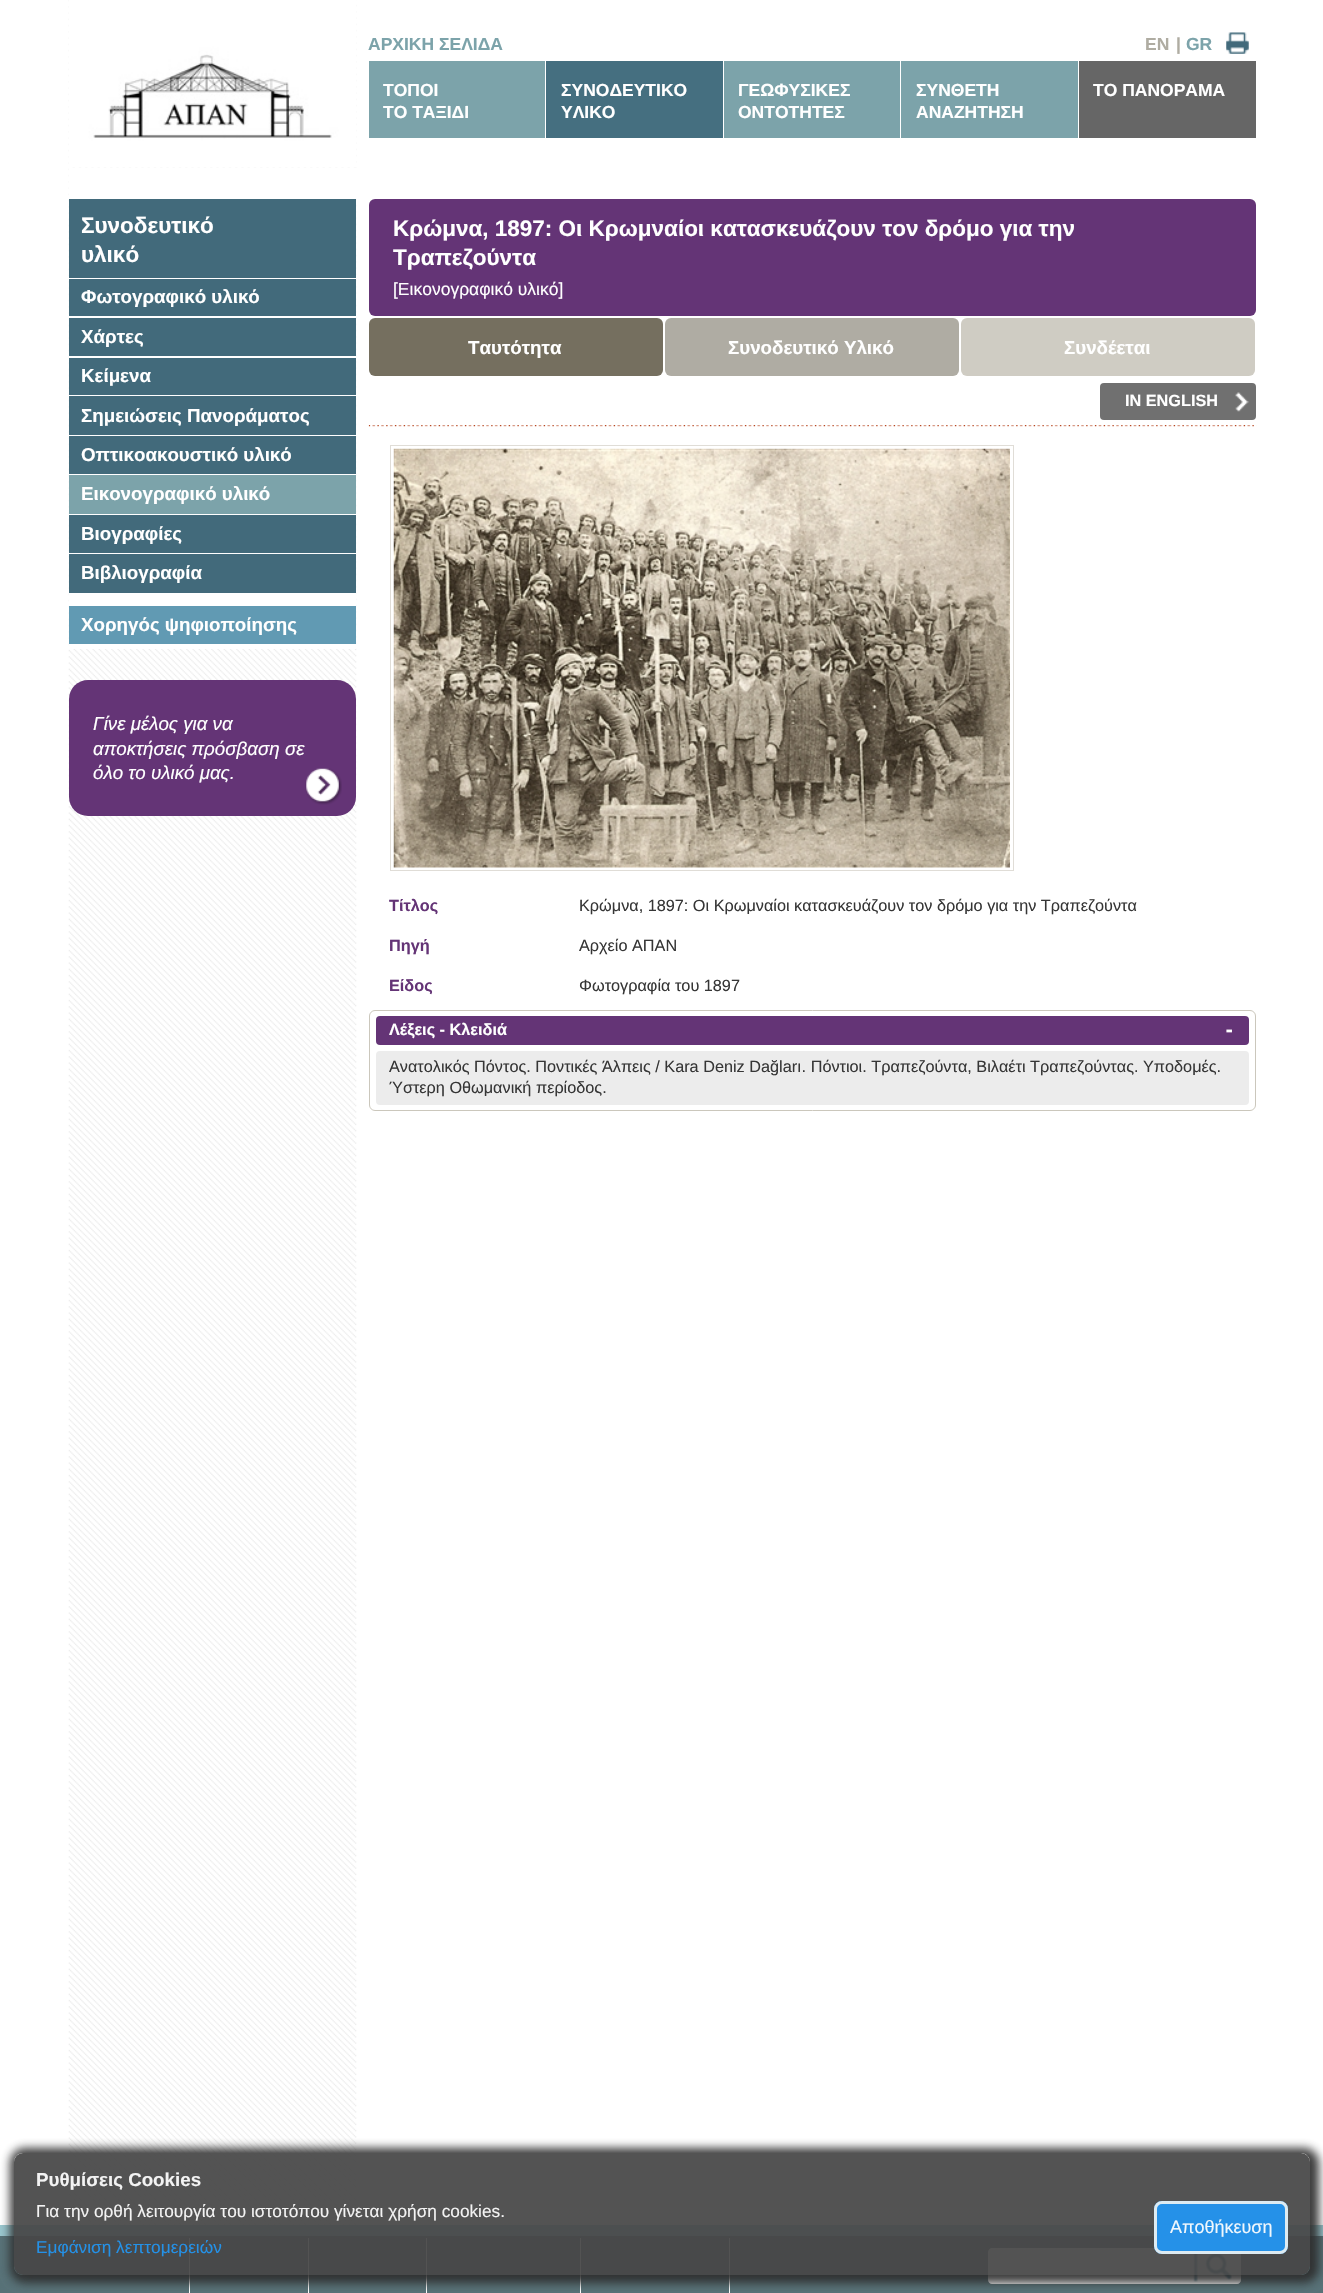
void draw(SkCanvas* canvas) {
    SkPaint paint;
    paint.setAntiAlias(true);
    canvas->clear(0xFFFFFFFF);
    canvas->drawImageRect(SkImages::DeferredFromEncodedData(SkData::MakeFromFileName("img1.png")), SkRect::MakeXYWH(68, 0, 289, 2225), SkSamplingOptions());
    canvas->drawImageRect(SkImages::DeferredFromEncodedData(SkData::MakeFromFileName("img2.png")), SkRect::MakeXYWH(69, 0, 287, 168), SkSamplingOptions());
    SkFont font1(fontMgr->matchFamilyStyle("Liberation Sans", SkFontStyle::Bold()), 17.5f);
    font1.setSubpixel(true);
    paint.setColor(0xFF7CA3AA);
    canvas->drawString("ΑΡΧΙΚΗ ΣΕΛΙΔΑ", 368, 50, font1, paint);
    paint.setColor(0xFFAFACA2);
    canvas->drawString("EN", 1145, 50, font1, paint);
    canvas->drawString("|", 1176, 50, font1, paint);
    paint.setColor(0xFF7CA3AA);
    canvas->drawString("GR", 1186, 50, font1, paint);
    canvas->drawImageRect(SkImages::DeferredFromEncodedData(SkData::MakeFromFileName("img3.png")), SkRect::MakeXYWH(1226, 32, 23, 22), SkSamplingOptions());
    paint.setColor(0xFF666666);
    canvas->drawRect(SkRect::MakeXYWH(1079, 61, 177, 77), paint);
    paint.setColor(0xFF7CA3AA);
    canvas->drawRect(SkRect::MakeXYWH(369, 61, 176, 77), paint);
    paint.setColor(0xFFFFFFFF);
    canvas->drawString("ΤΟΠΟΙ", 383, 96, font1, paint);
    canvas->drawString("ΤΟ ΤΑΞΙΔΙ", 383, 118, font1, paint);
    paint.setColor(0xFF456F80);
    canvas->drawRect(SkRect::MakeXYWH(546, 61, 177, 77), paint);
    paint.setColor(0xFFFFFFFF);
    canvas->drawString("ΣΥΝΟΔΕΥΤΙΚΟ", 561, 96, font1, paint);
    canvas->drawString("ΥΛΙΚΟ", 561, 118, font1, paint);
    paint.setColor(0xFF7CA3AA);
    canvas->drawRect(SkRect::MakeXYWH(724, 61, 176, 77), paint);
    paint.setColor(0xFFFFFFFF);
    canvas->drawString("ΓΕΩΦΥΣΙΚΕΣ", 738, 96, font1, paint);
    canvas->drawString("ΟΝΤΟΤΗΤΕΣ", 738, 118, font1, paint);
    paint.setColor(0xFF7CA3AA);
    canvas->drawRect(SkRect::MakeXYWH(901, 61, 177, 77), paint);
    paint.setColor(0xFFFFFFFF);
    canvas->drawString("ΣΥΝΘΕΤΗ", 916, 96, font1, paint);
    canvas->drawString("ΑΝΑΖΗΤΗΣΗ", 916, 118, font1, paint);
    canvas->drawString("ΤΟ ΠΑΝΟΡΑΜΑ", 1093, 96, font1, paint);
    canvas->drawRect(SkRect::MakeXYWH(69, 168, 288, 31), paint);
    canvas->drawRect(SkRect::MakeXYWH(69, 278, 287, 371), paint);
    paint.setColor(0xFF426A7B);
    canvas->drawRect(SkRect::MakeXYWH(69, 199, 287, 79), paint);
    SkFont font2(fontMgr->matchFamilyStyle("Liberation Sans", SkFontStyle::Bold()), 22.5f);
    font2.setSubpixel(true);
    paint.setColor(0xFFFFFFFF);
    canvas->drawString("Συνοδευτικό", 81, 233, font2, paint);
    canvas->drawString("υλικό", 81, 262, font2, paint);
    paint.setColor(0xFF426A7B);
    canvas->drawRect(SkRect::MakeXYWH(69, 279, 287, 37), paint);
    SkFont font3(fontMgr->matchFamilyStyle("Liberation Sans", SkFontStyle::Bold()), 18.75f);
    font3.setSubpixel(true);
    paint.setColor(0xFFFFFFFF);
    canvas->drawString("Φωτογραφικό υλικό", 81, 303, font3, paint);
    paint.setColor(0xFF426A7B);
    canvas->drawRect(SkRect::MakeXYWH(69, 318, 287, 38), paint);
    paint.setColor(0xFFFFFFFF);
    canvas->drawString("Χάρτες", 81, 343, font3, paint);
    paint.setColor(0xFF426A7B);
    canvas->drawRect(SkRect::MakeXYWH(69, 358, 287, 37), paint);
    paint.setColor(0xFFFFFFFF);
    canvas->drawString("Κείμενα", 81, 382, font3, paint);
    paint.setColor(0xFF426A7B);
    canvas->drawRect(SkRect::MakeXYWH(69, 396, 287, 39), paint);
    paint.setColor(0xFFFFFFFF);
    canvas->drawString("Σημειώσεις Πανοράματος", 81, 422, font3, paint);
    paint.setColor(0xFF426A7B);
    canvas->drawRect(SkRect::MakeXYWH(69, 436, 287, 38), paint);
    paint.setColor(0xFFFFFFFF);
    canvas->drawString("Οπτικοακουστικό υλικό", 81, 461, font3, paint);
    paint.setColor(0xFF7CA3AA);
    canvas->drawRect(SkRect::MakeXYWH(69, 475, 287, 39), paint);
    paint.setColor(0xFFFFFFFF);
    canvas->drawString("Εικονογραφικό υλικό", 81, 500, font3, paint);
    paint.setColor(0xFF426A7B);
    canvas->drawRect(SkRect::MakeXYWH(69, 515, 287, 38), paint);
    paint.setColor(0xFFFFFFFF);
    canvas->drawString("Βιογραφίες", 81, 540, font3, paint);
    paint.setColor(0xFF426A7B);
    canvas->drawRect(SkRect::MakeXYWH(69, 554, 287, 39), paint);
    paint.setColor(0xFFFFFFFF);
    canvas->drawString("Βιβλιογραφία", 81, 579, font3, paint);
    paint.setColor(0xFF619AB3);
    canvas->drawRect(SkRect::MakeXYWH(69, 606, 287, 38), paint);
    paint.setColor(0xFFFFFFFF);
    canvas->drawString("Χορηγός ψηφιοποίησης", 81, 631, font3, paint);
    paint.setColor(0xFF643476);
    canvas->drawRoundRect(SkRect::MakeXYWH(69, 680, 287, 136), 19, 19, paint);
    canvas->drawImageRect(SkImages::DeferredFromEncodedData(SkData::MakeFromFileName("img4.png")), SkRect::MakeXYWH(305, 768, 37, 37), SkSamplingOptions());
    SkFont font4(fontMgr->matchFamilyStyle("Liberation Sans", SkFontStyle::Italic()), 18.75f);
    font4.setSubpixel(true);
    paint.setColor(0xFFFFFFFF);
    canvas->drawString("Γίνε μέλος για να", 93, 730, font4, paint);
    canvas->drawString("αποκτήσεις πρόσβαση σε", 93, 755, font4, paint);
    canvas->drawString("όλο το υλικό μας.", 93, 779, font4, paint);
    paint.setColor(0xFF643476);
    canvas->drawRoundRect(SkRect::MakeXYWH(369, 199, 887, 117), 6, 6, paint);
    paint.setColor(0xFFFFFFFF);
    canvas->drawString("Κρώμνα, 1897: Οι Κρωμναίοι κατασκευάζουν τον δρόμο για την", 393, 236, font2, paint);
    canvas->drawString("Τραπεζούντα", 393, 265, font2, paint);
    SkFont font5(fontMgr->matchFamilyStyle("Liberation Sans", SkFontStyle::Normal()), 17.5f);
    font5.setSubpixel(true);
    canvas->drawString("[Εικονογραφικό υλικό]", 393, 295, font5, paint);
    paint.setColor(0xFF756F5F);
    canvas->drawRoundRect(SkRect::MakeXYWH(369, 318, 294, 58), 6, 6, paint);
    paint.setColor(0xFFFFFFFF);
    canvas->drawString("Ταυτότητα", 468, 354, font3, paint);
    paint.setColor(0xFFAFACA3);
    canvas->drawRoundRect(SkRect::MakeXYWH(665, 318, 294, 58), 6, 6, paint);
    paint.setColor(0xFFFFFFFF);
    canvas->drawString("Συνοδευτικό Υλικό", 728, 354, font3, paint);
    paint.setColor(0xFFCFCCC3);
    canvas->drawRoundRect(SkRect::MakeXYWH(961, 318, 294, 58), 6, 6, paint);
    paint.setColor(0xFFFFFFFF);
    canvas->drawString("Συνδέεται", 1064, 354, font3, paint);
    canvas->drawImageRect(SkImages::DeferredFromEncodedData(SkData::MakeFromFileName("img5.png")), SkRect::MakeXYWH(368, 425, 889, 2), SkSamplingOptions());
    paint.setColor(0xFF707070);
    canvas->drawRoundRect(SkRect::MakeXYWH(1100, 383, 156, 37), 4, 4, paint);
    SkFont font6(fontMgr->matchFamilyStyle("Liberation Sans", SkFontStyle::Bold()), 16.25f);
    font6.setSubpixel(true);
    paint.setColor(0xFFFFFFFF);
    canvas->drawString("IN ENGLISH", 1125, 406, font6, paint);
    canvas->drawImageRect(SkImages::DeferredFromEncodedData(SkData::MakeFromFileName("img6.png")), SkRect::MakeXYWH(1235, 392, 14, 20), SkSamplingOptions());
    paint.setStyle(SkPaint::kStroke_Style);
    paint.setStrokeWidth(1);
    paint.setColor(0xFFE0DDD7);
    canvas->drawRect(SkRect::MakeXYWH(390.5f, 445.5f, 623, 425), paint);
    canvas->drawImageRect(SkImages::DeferredFromEncodedData(SkData::MakeFromFileName("img7.png")), SkRect::MakeXYWH(393, 448, 617, 420), SkSamplingOptions());
    paint.setStyle(SkPaint::kFill_Style);
    paint.setColor(0xFF643476);
    canvas->drawString("Τίτλος", 389, 911, font6, paint);
    SkFont font7(fontMgr->matchFamilyStyle("Liberation Sans", SkFontStyle::Normal()), 16.25f);
    font7.setSubpixel(true);
    paint.setColor(0xFF363636);
    canvas->drawString("Κρώμνα, 1897: Οι Κρωμναίοι κατασκευάζουν τον δρόμο για την Τραπεζούντα", 579, 911, font7, paint);
    paint.setColor(0xFF643476);
    canvas->drawString("Πηγή", 389, 951, font6, paint);
    paint.setColor(0xFF363636);
    canvas->drawString("Αρχείο ΑΠΑΝ", 579, 951, font7, paint);
    paint.setColor(0xFF643476);
    canvas->drawString("Είδος", 389, 991, font6, paint);
    paint.setColor(0xFF363636);
    canvas->drawString("Φωτογραφία του 1897", 579, 991, font7, paint);
    paint.setStyle(SkPaint::kStroke_Style);
    paint.setColor(0xFFCBC7BC);
    canvas->drawRoundRect(SkRect::MakeXYWH(369.5f, 1010.5f, 886, 100), 5.5f, 5.5f, paint);
    paint.setStyle(SkPaint::kFill_Style);
    paint.setColor(0xFF643476);
    canvas->drawRoundRect(SkRect::MakeXYWH(376, 1016, 873, 29), 4, 4, paint);
    paint.setColor(0xFFFFFFFF);
    canvas->drawString("Λέξεις - Κλειδιά", 389, 1035, font6, paint);
    SkFont font8(fontMgr->matchFamilyStyle("DejaVu Sans Mono", SkFontStyle::Bold()), 17.5f);
    font8.setSubpixel(true);
    canvas->drawString("-", 1224, 1036, font8, paint);
    paint.setColor(0xFFECECEC);
    canvas->drawRoundRect(SkRect::MakeXYWH(376, 1051, 873, 54), 4, 4, paint);
    paint.setColor(0xFF363636);
    canvas->drawString("Ανατολικός Πόντος. Ποντικές Άλπεις / Kara Deniz Dağları. Πόντιοι. Τραπεζούντα, Βιλαέτι Τραπεζούντας. Υποδομές.", 389, 1072, font7, paint);
    canvas->drawString("Ύστερη Οθωμανική περίοδος.", 389, 1093, font7, paint);
    paint.setColor(0xFF577177);
    canvas->drawRect(SkRect::MakeXYWH(0, 2236, 1323, 57), paint);
    paint.setColor(0xFF99C6CE);
    canvas->drawRect(SkRect::MakeXYWH(0, 2225, 1323, 11), paint);
    paint.setColor(0xFFFFFFFF);
    canvas->drawRect(SkRect::MakeXYWH(189, 2238, 1, 55), paint);
    canvas->drawRect(SkRect::MakeXYWH(308, 2238, 1, 55), paint);
    canvas->drawRect(SkRect::MakeXYWH(426, 2238, 1, 55), paint);
    canvas->drawRect(SkRect::MakeXYWH(580, 2238, 1, 55), paint);
    canvas->drawRect(SkRect::MakeXYWH(729, 2238, 1, 55), paint);
    canvas->drawPath(SkPathBuilder().moveTo(992, 2248).lineTo(1194, 2248).lineTo(1194, 2284).lineTo(992, 2284).cubicTo(990, 2284, 988, 2282, 988, 2280).lineTo(988, 2252).cubicTo(988, 2250, 990, 2248, 992, 2248).close().detach(), paint);
    canvas->drawPath(SkPathBuilder().moveTo(1194, 2248).lineTo(1237, 2248).cubicTo(1239, 2248, 1241, 2250, 1241, 2252).lineTo(1241, 2280).cubicTo(1241, 2282, 1239, 2284, 1237, 2284).lineTo(1194, 2284).close().detach(), paint);
    canvas->drawImageRect(SkImages::DeferredFromEncodedData(SkData::MakeFromFileName("img8.png")), SkRect::MakeXYWH(1193, 2249, 39, 33), SkSamplingOptions());
    canvas->save();
    canvas->clipPath(SkPathBuilder(SkPathFillType::kEvenOdd).moveTo(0, 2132).lineTo(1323, 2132).lineTo(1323, 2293).lineTo(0, 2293).close().moveTo(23, 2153).lineTo(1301, 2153).cubicTo(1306, 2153, 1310, 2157, 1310, 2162).lineTo(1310, 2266).cubicTo(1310, 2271, 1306, 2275, 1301, 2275).lineTo(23, 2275).cubicTo(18, 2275, 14, 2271, 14, 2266).lineTo(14, 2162).cubicTo(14, 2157, 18, 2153, 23, 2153).close().detach(), true);
    paint.setColor(0xED2D2D2D);
    paint.setMaskFilter(SkMaskFilter::MakeBlur(kNormal_SkBlurStyle, 5));
    canvas->drawRoundRect(SkRect::MakeXYWH(10, 2148, 1309, 135), 15, 15, paint);
    paint.setMaskFilter(nullptr);
    canvas->restore();
    paint.setColor(0xED464646);
    canvas->drawRoundRect(SkRect::MakeXYWH(14, 2153, 1296, 122), 9, 9, paint);
    paint.setColor(0xFFF3F3F3);
    canvas->drawString("Ρυθμίσεις Cookies", 36, 2186, font3, paint);
    SkFont font9(fontMgr->matchFamilyStyle("Liberation Sans", SkFontStyle::Normal()), 17.25f);
    font9.setSubpixel(true);
    canvas->drawString("Για την ορθή λειτουργία του ιστοτόπου γίνεται χρήση cookies.", 36, 2217, font9, paint);
    paint.setColor(0xFF2491E7);
    canvas->drawString("Eμφάνιση λεπτομερειών", 36, 2253, font9, paint);
    paint.setColor(0xED2196F3);
    canvas->drawRoundRect(SkRect::MakeXYWH(1154, 2201, 134, 53), 8, 8, paint);
    paint.setStyle(SkPaint::kStroke_Style);
    paint.setStrokeWidth(3);
    paint.setColor(0xEDEBF1F2);
    canvas->drawRoundRect(SkRect::MakeXYWH(1155.5f, 2202.5f, 131, 50), 6.5f, 6.5f, paint);
    SkFont font10(fontMgr->matchFamilyStyle("Liberation Sans", SkFontStyle::Normal()), 18);
    font10.setSubpixel(true);
    paint.setStyle(SkPaint::kFill_Style);
    paint.setColor(0xFFF0F7FD);
    canvas->drawString("Αποθήκευση", 1170, 2233, font10, paint);
}
